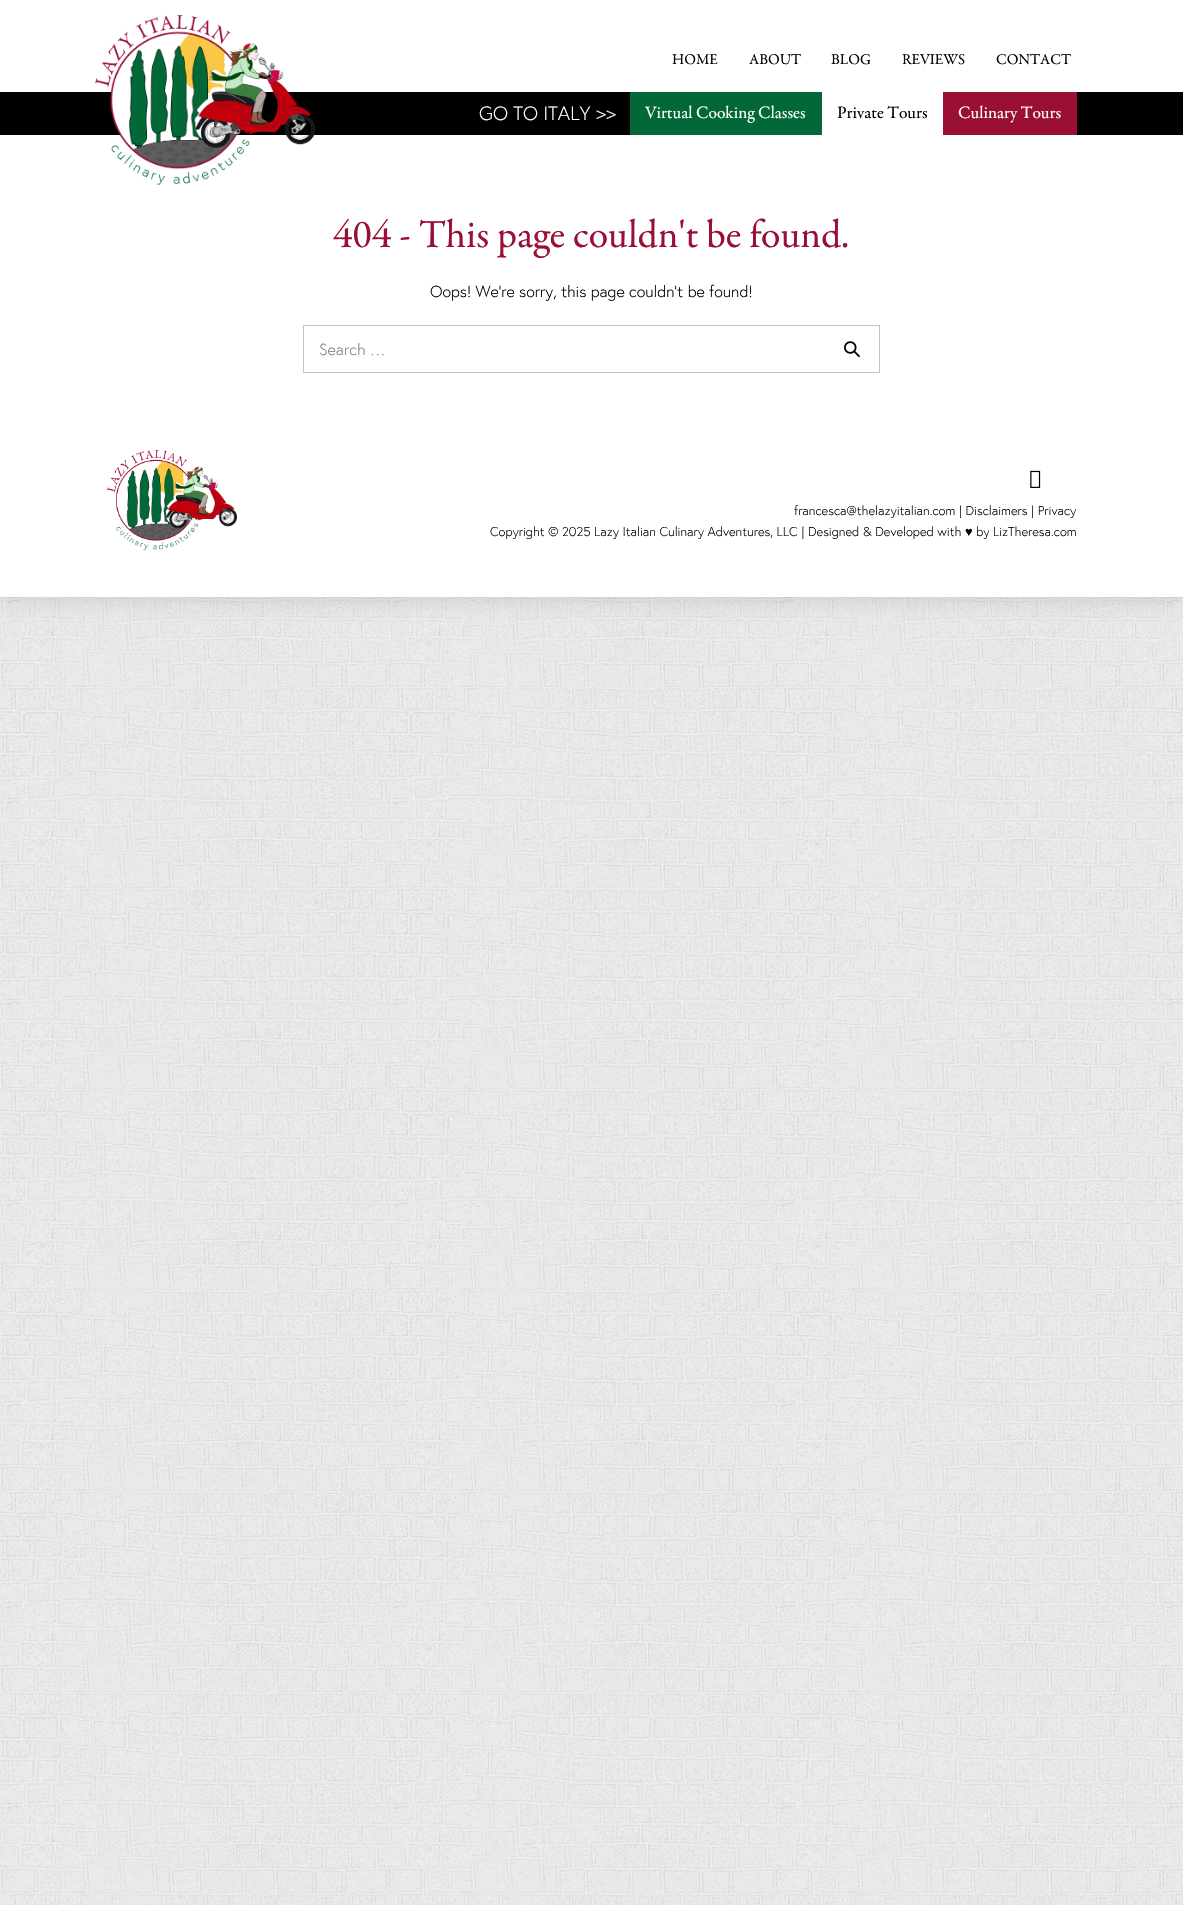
void draw(SkCanvas* canvas) {
    SkPaint paint;
    paint.setAntiAlias(true);
    canvas->clear(0xFFFFFFFF);
    canvas->drawImageRect(SkImages::DeferredFromEncodedData(SkData::MakeFromFileName("img1.png")), SkRect::MakeXYWH(0, 597, 1183, 1308), SkSamplingOptions());
    paint.setColor(0x26000000);
    paint.setMaskFilter(SkMaskFilter::MakeBlur(kNormal_SkBlurStyle, 12.5f));
    canvas->drawRect(SkRect::MakeXYWH(0, 0, 1183, 597), paint);
    paint.setMaskFilter(nullptr);
    paint.setColor(0xFFFFFFFF);
    canvas->drawRect(SkRect::MakeXYWH(0, 0, 1183, 597), paint);
    paint.setColor(0xFF000000);
    canvas->drawRect(SkRect::MakeXYWH(0, 92, 1183, 43), paint);
    canvas->drawImageRect(SkImages::DeferredFromEncodedData(SkData::MakeFromFileName("img2.png")), SkRect::MakeXYWH(95, 15, 221, 170), SkSamplingOptions());
    SkFont font1(fontMgr->matchFamilyStyle("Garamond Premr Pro", SkFontStyle::Normal()), 15);
    font1.setSubpixel(true);
    canvas->drawString("HOME", 672, 64, font1, paint);
    canvas->drawString("ABOUT", 749, 64, font1, paint);
    canvas->drawString("BLOG", 831, 64, font1, paint);
    canvas->drawString("REVIEWS", 902, 64, font1, paint);
    canvas->drawString("CONTACT", 996, 64, font1, paint);
    SkFont font2(fontMgr->matchFamilyStyle("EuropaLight", SkFontStyle(300, SkFontStyle::kNormal_Width, SkFontStyle::kUpright_Slant)), 19.25f);
    font2.setSubpixel(true);
    paint.setColor(0xFFFFFFFF);
    canvas->drawString("GO TO ITALY >>", 479, 120, font2, paint);
    paint.setColor(0xFF036837);
    canvas->drawRect(SkRect::MakeXYWH(630, 92, 192, 43), paint);
    SkFont font3(fontMgr->matchFamilyStyle("Garamond Premr Pro", SkFontStyle::Normal()), 17.5f);
    font3.setSubpixel(true);
    paint.setColor(0xFFFFFFFF);
    canvas->drawString("Virtual Cooking Classes", 645, 118, font3, paint);
    canvas->drawRect(SkRect::MakeXYWH(822, 92, 121, 43), paint);
    paint.setColor(0xFF000000);
    canvas->drawString("Private Tours", 837, 118, font3, paint);
    paint.setColor(0xFF991034);
    canvas->drawRect(SkRect::MakeXYWH(943, 92, 134, 43), paint);
    paint.setColor(0xFFFFFFFF);
    canvas->drawString("Culinary Tours", 958, 118, font3, paint);
    SkFont font4(fontMgr->matchFamilyStyle("Garamond Premr Pro", SkFontStyle::Normal()), 40);
    font4.setSubpixel(true);
    paint.setColor(0xFF991034);
    canvas->drawString("404 - This page couldn't be found.", 333, 247, font4, paint);
    SkFont font5(fontMgr->matchFamilyStyle("EuropaLight", SkFontStyle(300, SkFontStyle::kNormal_Width, SkFontStyle::kUpright_Slant)), 16);
    font5.setSubpixel(true);
    paint.setColor(0xFF000000);
    canvas->drawString("Oops! We're sorry, this page couldn't be found!", 430, 297, font5, paint);
    paint.setStyle(SkPaint::kStroke_Style);
    paint.setStrokeWidth(1);
    paint.setColor(0xFFC4C2C2);
    canvas->drawRect(SkRect::MakeXYWH(303.5f, 325.5f, 576, 47), paint);
    paint.setStyle(SkPaint::kFill_Style);
    paint.setColor(0xFF808080);
    canvas->drawString("Search …", 319, 355, font5, paint);
    canvas->drawImageRect(SkImages::DeferredFromEncodedData(SkData::MakeFromFileName("img3.png")), SkRect::MakeXYWH(844, 341, 16, 16), SkSamplingOptions());
    canvas->drawImageRect(SkImages::DeferredFromEncodedData(SkData::MakeFromFileName("img4.png")), SkRect::MakeXYWH(107, 450, 130, 100), SkSamplingOptions());
    canvas->drawImageRect(SkImages::DeferredFromEncodedData(SkData::MakeFromFileName("img5.png")), SkRect::MakeXYWH(1030, 470, 11, 18), SkSamplingOptions());
    SkFont font6(fontMgr->matchFamilyStyle("EuropaLight", SkFontStyle(300, SkFontStyle::kNormal_Width, SkFontStyle::kUpright_Slant)), 12.8f);
    font6.setSubpixel(true);
    paint.setColor(0xFF000000);
    canvas->drawString("francesca@thelazyitalian.com | Disclaimers | Privacy", 794, 515, font6, paint);
    canvas->drawString("Copyright © 2025 Lazy Italian Culinary Adventures, LLC | Designed & Developed with", 490, 536, font6, paint);
    SkFont font7(fontMgr->matchFamilyStyle("Liberation Serif", SkFontStyle::Normal()), 12.8f);
    font7.setSubpixel(true);
    canvas->drawString("♥", 965, 536, font7, paint);
    canvas->drawString("by LizTheresa.com", 976, 536, font6, paint);
}
